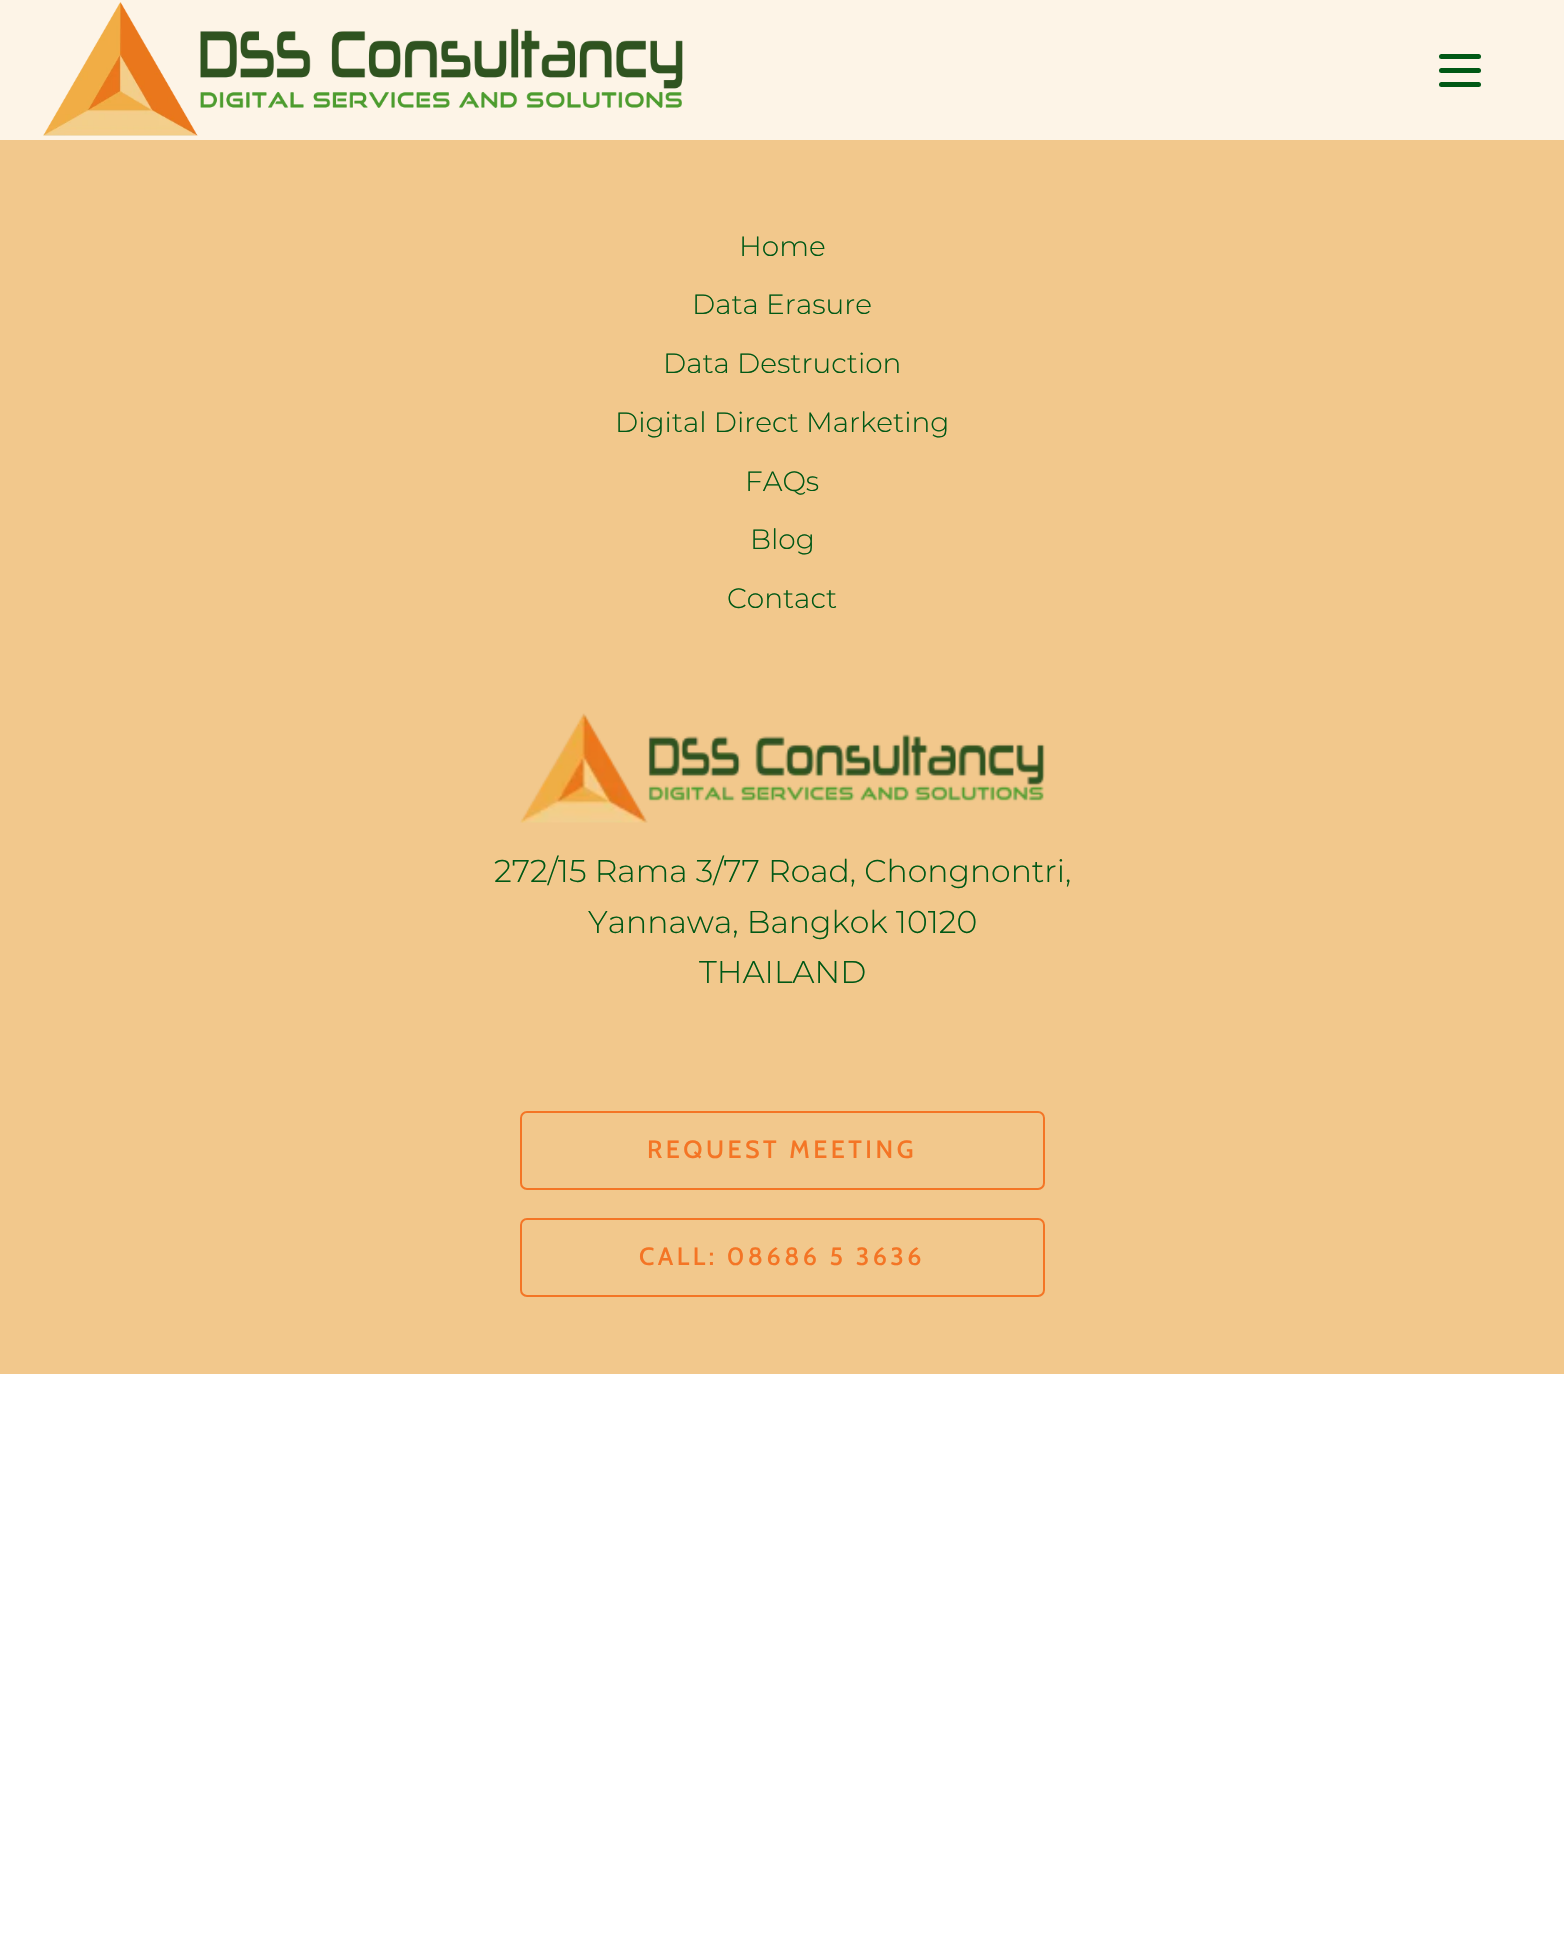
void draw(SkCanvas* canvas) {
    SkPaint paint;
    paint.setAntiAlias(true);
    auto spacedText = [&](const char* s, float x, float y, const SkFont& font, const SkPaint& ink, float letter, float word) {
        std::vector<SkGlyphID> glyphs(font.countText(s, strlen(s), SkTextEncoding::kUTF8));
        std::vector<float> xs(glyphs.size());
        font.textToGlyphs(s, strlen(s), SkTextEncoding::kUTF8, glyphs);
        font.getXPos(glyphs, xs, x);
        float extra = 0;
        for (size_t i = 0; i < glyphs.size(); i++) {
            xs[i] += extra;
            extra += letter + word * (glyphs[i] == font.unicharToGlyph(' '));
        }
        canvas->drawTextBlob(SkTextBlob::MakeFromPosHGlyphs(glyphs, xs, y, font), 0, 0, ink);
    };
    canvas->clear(0xFFFFFFFF);
    paint.setColor(0xFFFDF4E7);
    canvas->drawRect(SkRect::MakeXYWH(0, 0, 1564, 140), paint);
    canvas->drawImageRect(SkImages::DeferredFromEncodedData(SkData::MakeFromFileName("img1.png")), SkRect::MakeXYWH(43, 2, 640, 134), SkSamplingOptions());
    paint.setColor(0xFF005815);
    canvas->drawRoundRect(SkRect::MakeXYWH(1439, 54, 42, 5), 2.5f, 2.5f, paint);
    canvas->drawRoundRect(SkRect::MakeXYWH(1439, 68, 42, 5), 2.5f, 2.5f, paint);
    canvas->drawRoundRect(SkRect::MakeXYWH(1439, 82, 42, 5), 2.5f, 2.5f, paint);
    paint.setColor(0xFFF2C88C);
    canvas->drawRect(SkRect::MakeXYWH(0, 140, 1564, 1234), paint);
    SkFont font1(fontMgr->matchFamilyStyle("Montserrat", SkFontStyle(100, SkFontStyle::kNormal_Width, SkFontStyle::kUpright_Slant)), 28);
    font1.setSubpixel(true);
    paint.setColor(0xFF005815);
    canvas->drawString("Home", 739, 256, font1, paint);
    canvas->drawString("Data Erasure", 692, 314, font1, paint);
    canvas->drawString("Data Destruction", 663, 373, font1, paint);
    canvas->drawString("Digital Direct Marketing", 615, 432, font1, paint);
    canvas->drawString("FAQs", 745, 491, font1, paint);
    canvas->drawString("Blog", 750, 549, font1, paint);
    canvas->drawString("Contact", 727, 608, font1, paint);
    canvas->drawImageRect(SkImages::DeferredFromEncodedData(SkData::MakeFromFileName("img2.png")), SkRect::MakeXYWH(520, 713, 525, 110), SkSamplingOptions());
    SkFont font2(fontMgr->matchFamilyStyle("Montserrat", SkFontStyle(100, SkFontStyle::kNormal_Width, SkFontStyle::kUpright_Slant)), 31.5f);
    font2.setSubpixel(true);
    canvas->drawString("272/15 Rama 3/77 Road, Chongnontri,", 494, 882, font2, paint);
    canvas->drawString("Yannawa, Bangkok 10120", 588, 933, font2, paint);
    canvas->drawString("THAILAND", 699, 983, font2, paint);
    paint.setStyle(SkPaint::kStroke_Style);
    paint.setStrokeWidth(2);
    paint.setColor(0xFFF47525);
    canvas->drawRoundRect(SkRect::MakeXYWH(521, 1112, 523, 77), 6, 6, paint);
    SkFont font3(fontMgr->matchFamilyStyle("Cabin", SkFontStyle(500, SkFontStyle::kNormal_Width, SkFontStyle::kUpright_Slant)), 25);
    font3.setSubpixel(true);
    paint.setStyle(SkPaint::kFill_Style);
    spacedText("REQUEST MEETING", 647, 1158, font3, paint, 3.5f, 0);
    paint.setStyle(SkPaint::kStroke_Style);
    canvas->drawRoundRect(SkRect::MakeXYWH(521, 1219, 523, 77), 6, 6, paint);
    paint.setStyle(SkPaint::kFill_Style);
    spacedText("CALL: 08686 5 3636", 639, 1265, font3, paint, 3.5f, 0);
}
